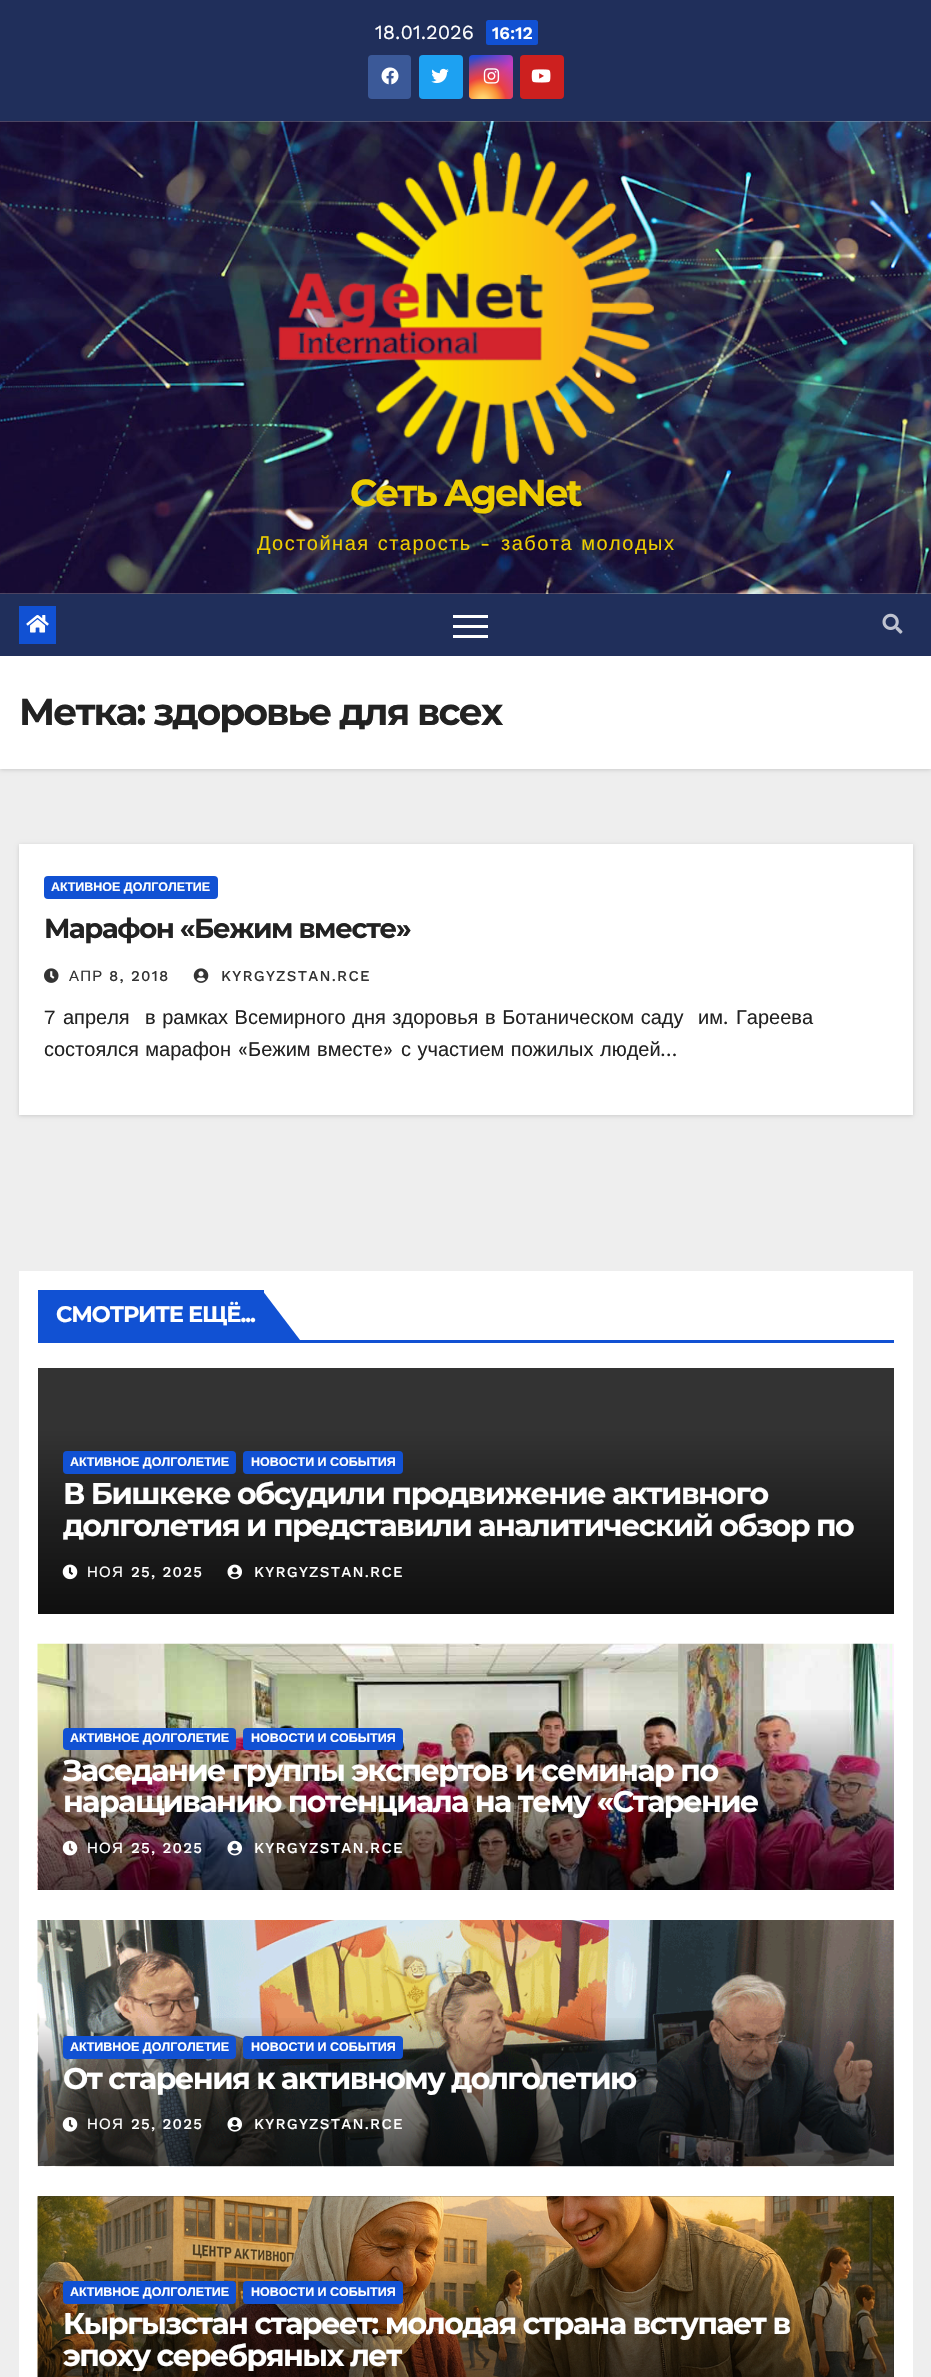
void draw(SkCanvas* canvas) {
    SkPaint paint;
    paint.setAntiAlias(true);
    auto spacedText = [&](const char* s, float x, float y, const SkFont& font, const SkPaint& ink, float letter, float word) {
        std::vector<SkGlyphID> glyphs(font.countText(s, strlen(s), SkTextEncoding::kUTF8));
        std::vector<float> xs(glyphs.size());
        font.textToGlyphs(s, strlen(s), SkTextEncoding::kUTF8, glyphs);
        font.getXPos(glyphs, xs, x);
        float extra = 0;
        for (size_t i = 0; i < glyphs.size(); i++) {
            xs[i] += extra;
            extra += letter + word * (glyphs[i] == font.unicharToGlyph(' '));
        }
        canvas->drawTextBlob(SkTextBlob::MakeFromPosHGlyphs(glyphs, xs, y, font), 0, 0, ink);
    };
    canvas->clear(0xFFEEEEEE);
    paint.setColor(0xFF202F5B);
    canvas->drawRect(SkRect::MakeXYWH(0, 0, 931, 121), paint);
    SkFont font1(fontMgr->matchFamilyStyle("Work Sans", SkFontStyle::Normal()), 20);
    font1.setSubpixel(true);
    paint.setColor(0xFFFFFFFF);
    canvas->drawString("18.01.2026", 375, 39, font1, paint);
    paint.setColor(0xFF1151D3);
    canvas->drawRoundRect(SkRect::MakeXYWH(486, 20, 52, 25), 2.5f, 2.5f, paint);
    SkFont font2(fontMgr->matchFamilyStyle("Work Sans", SkFontStyle(600, SkFontStyle::kNormal_Width, SkFontStyle::kUpright_Slant)), 17.5f);
    font2.setSubpixel(true);
    paint.setColor(0xFFFFFFFF);
    canvas->drawString("16:12", 492, 39, font2, paint);
    paint.setColor(0xFF3B5998);
    canvas->drawRoundRect(SkRect::MakeXYWH(368, 55, 43, 44), 4, 4, paint);
    canvas->drawImageRect(SkImages::DeferredFromEncodedData(SkData::MakeFromFileName("img1.png")), SkRect::MakeXYWH(381, 67, 18, 18), SkSamplingOptions());
    paint.setColor(0xFF1DA1F2);
    canvas->drawRoundRect(SkRect::MakeXYWH(419, 55, 44, 44), 4, 4, paint);
    canvas->drawImageRect(SkImages::DeferredFromEncodedData(SkData::MakeFromFileName("img2.png")), SkRect::MakeXYWH(431, 68, 18, 16), SkSamplingOptions());
    {
        const SkColor colors[] = {0xFF234BD7, 0xFFC33CBE};
        const float stops[] = {0.12f, 0.58f};
        const SkPoint ends[] = {{469, 55}, {513, 99}};
        paint.setShader(SkGradientShader::MakeLinear(ends, colors, stops, 2, SkTileMode::kClamp));
        paint.setAlpha(255);
    }
    canvas->drawRoundRect(SkRect::MakeXYWH(469, 55, 44, 44), 4, 4, paint);
    {
        const SkColor colors[] = {0xFFFFE17D, 0xFFFFCD69, 0xFFFA9137, 0xFFEB4141, 0x00EB4141};
        const float stops[] = {0, 0.1f, 0.28f, 0.42f, 0.82f};
        paint.setShader(SkGradientShader::MakeRadial({483, 101}, 55, colors, stops, 5, SkTileMode::kClamp));
        paint.setAlpha(255);
    }
    canvas->drawRoundRect(SkRect::MakeXYWH(469, 55, 44, 44), 4, 4, paint);
    canvas->drawImageRect(SkImages::DeferredFromEncodedData(SkData::MakeFromFileName("img3.png")), SkRect::MakeXYWH(483, 68, 17, 16), SkSamplingOptions());
    paint.setShader(nullptr);
    paint.setColor(0xFFCD201F);
    canvas->drawRoundRect(SkRect::MakeXYWH(520, 55, 44, 44), 4, 4, paint);
    canvas->drawImageRect(SkImages::DeferredFromEncodedData(SkData::MakeFromFileName("img4.png")), SkRect::MakeXYWH(531, 69, 20, 14), SkSamplingOptions());
    canvas->drawImageRect(SkImages::DeferredFromEncodedData(SkData::MakeFromFileName("img5.png")), SkRect::MakeXYWH(0, 121, 931, 473), SkSamplingOptions());
    canvas->drawImageRect(SkImages::DeferredFromEncodedData(SkData::MakeFromFileName("img6.png")), SkRect::MakeXYWH(278, 152, 376, 312), SkSamplingOptions());
    SkFont font3(fontMgr->matchFamilyStyle("Montserrat", SkFontStyle::Bold()), 37.5f);
    font3.setSubpixel(true);
    paint.setColor(0xFFEDCD00);
    spacedText("Сеть AgeNet", 350, 506, font3, paint, -2.1f, 0);
    SkFont font4(fontMgr->matchFamilyStyle("Liberation Sans", SkFontStyle::Normal()), 20);
    font4.setSubpixel(true);
    spacedText("Достойная старость", 257, 550, font4, paint, 1.5f, 1);
    spacedText("-", 480, 550, font1, paint, 1.5f, 0);
    spacedText("забота молодых", 501, 550, font4, paint, 1.5f, 1);
    paint.setColor(0x26000000);
    paint.setMaskFilter(SkMaskFilter::MakeBlur(kNormal_SkBlurStyle, 2));
    canvas->drawRect(SkRect::MakeXYWH(0, 658, 931, 112), paint);
    paint.setMaskFilter(nullptr);
    paint.setColor(0xFF202F5B);
    canvas->drawRect(SkRect::MakeXYWH(0, 594, 931, 62), paint);
    paint.setColor(0xFF1151D3);
    canvas->drawRect(SkRect::MakeXYWH(19, 606, 37, 38), paint);
    canvas->drawImageRect(SkImages::DeferredFromEncodedData(SkData::MakeFromFileName("img7.png")), SkRect::MakeXYWH(26, 615, 23, 18), SkSamplingOptions());
    paint.setColor(0xFFFFFFFF);
    canvas->drawRect(SkRect::MakeXYWH(453, 615, 35, 3), paint);
    canvas->drawRect(SkRect::MakeXYWH(453, 625, 35, 3), paint);
    canvas->drawRect(SkRect::MakeXYWH(453, 635, 35, 3), paint);
    canvas->drawImageRect(SkImages::DeferredFromEncodedData(SkData::MakeFromFileName("img8.png")), SkRect::MakeXYWH(882, 613, 21, 21), SkSamplingOptions());
    canvas->drawRect(SkRect::MakeXYWH(0, 656, 931, 113), paint);
    paint.setColor(0xFF222222);
    spacedText("Метка: здоровье для всех", 19, 725, font3, paint, -1.9f, 0);
    paint.setColor(0x26000000);
    paint.setMaskFilter(SkMaskFilter::MakeBlur(kNormal_SkBlurStyle, 2));
    canvas->drawRect(SkRect::MakeXYWH(19, 845, 894, 271), paint);
    paint.setMaskFilter(nullptr);
    paint.setColor(0xFFFFFFFF);
    canvas->drawRect(SkRect::MakeXYWH(19, 844, 894, 271), paint);
    paint.setColor(0xFF1151D3);
    canvas->drawRoundRect(SkRect::MakeXYWH(44, 876, 174, 23), 4, 4, paint);
    SkFont font5(fontMgr->matchFamilyStyle("Liberation Sans", SkFontStyle::Bold()), 12.5f);
    font5.setSubpixel(true);
    paint.setColor(0xFFFFFFFF);
    canvas->drawString("АКТИВНОЕ ДОЛГОЛЕТИЕ", 51, 891, font5, paint);
    SkFont font6(fontMgr->matchFamilyStyle("Montserrat", SkFontStyle::Bold()), 27.5f);
    font6.setSubpixel(true);
    paint.setColor(0xFF222222);
    spacedText("Марафон «Бежим вместе»", 44, 938, font6, paint, -1.4f, 0);
    canvas->drawImageRect(SkImages::DeferredFromEncodedData(SkData::MakeFromFileName("img9.png")), SkRect::MakeXYWH(44, 968, 15, 15), SkSamplingOptions());
    SkFont font7(fontMgr->matchFamilyStyle("Liberation Sans", SkFontStyle::Normal()), 15);
    font7.setSubpixel(true);
    paint.setColor(0xFF333333);
    spacedText("АПР", 69, 981, font7, paint, 1.25f, 0);
    SkFont font8(fontMgr->matchFamilyStyle("Work Sans", SkFontStyle(500, SkFontStyle::kNormal_Width, SkFontStyle::kUpright_Slant)), 15);
    font8.setSubpixel(true);
    spacedText("8, 2018", 109, 981, font8, paint, 1.25f, 0);
    canvas->drawImageRect(SkImages::DeferredFromEncodedData(SkData::MakeFromFileName("img10.png")), SkRect::MakeXYWH(193, 968, 16, 15), SkSamplingOptions());
    spacedText("KYRGYZSTAN.RCE", 221, 981, font8, paint, 1.25f, 0);
    paint.setColor(0xFF222222);
    canvas->drawString("7", 44, 1024, font1, paint);
    canvas->drawString("апреля", 63, 1024, font4, paint);
    spacedText("в рамках Всемирного дня здоровья в Ботаническом саду", 145, 1024, font4, paint, 0, 1);
    canvas->drawString("им", 698, 1024, font4, paint);
    canvas->drawString(".", 723, 1024, font1, paint);
    canvas->drawString("Гареева", 736, 1024, font4, paint);
    spacedText("состоялся марафон", 44, 1056, font4, paint, 0, 1);
    canvas->drawString("«", 238, 1056, font1, paint);
    spacedText("Бежим вместе", 248, 1056, font4, paint, 0, 1);
    canvas->drawString("»", 383, 1056, font1, paint);
    spacedText("с участием пожилых людей", 401, 1056, font4, paint, 0, 1);
    canvas->drawString("…", 660, 1056, font1, paint);
    paint.setColor(0xFFFFFFFF);
    canvas->drawRect(SkRect::MakeXYWH(19, 1271, 894, 1106), paint);
    paint.setColor(0xFF1151D3);
    canvas->drawRect(SkRect::MakeXYWH(38, 1340, 856, 3), paint);
    canvas->drawRect(SkRect::MakeXYWH(38, 1290, 226, 50), paint);
    SkFont font9(fontMgr->matchFamilyStyle("Montserrat", SkFontStyle::Bold()), 22.5f);
    font9.setSubpixel(true);
    paint.setColor(0xFFFFFFFF);
    spacedText("СМОТРИТЕ ЕЩЁ...", 56, 1322, font9, paint, -1.1f, 0);
    paint.setColor(0xFF1151D3);
    canvas->drawPath(SkPathBuilder().moveTo(262, 1340).lineTo(262, 1290).lineTo(300, 1340).close().detach(), paint);
    paint.setColor(0xFF333333);
    canvas->drawRect(SkRect::MakeXYWH(38, 1368, 856, 61), paint);
    {
        const SkColor colors[] = {0xFF333333, 0xFF1F1F1F, 0xFF0F0F0F};
        const float stops[] = {0, 0.5f, 1};
        const SkPoint ends[] = {{466, 1429}, {466, 1614}};
        paint.setShader(SkGradientShader::MakeLinear(ends, colors, stops, 3, SkTileMode::kClamp));
        paint.setAlpha(255);
    }
    canvas->drawRect(SkRect::MakeXYWH(38, 1429, 856, 185), paint);
    paint.setShader(nullptr);
    paint.setColor(0xFF1151D3);
    canvas->drawRoundRect(SkRect::MakeXYWH(63, 1451, 173, 23), 4, 4, paint);
    paint.setColor(0xFFFFFFFF);
    canvas->drawString("АКТИВНОЕ ДОЛГОЛЕТИЕ", 70, 1466, font5, paint);
    paint.setColor(0xFF1151D3);
    canvas->drawRoundRect(SkRect::MakeXYWH(243, 1451, 160, 23), 4, 4, paint);
    paint.setColor(0xFFFFFFFF);
    canvas->drawString("НОВОСТИ И СОБЫТИЯ", 251, 1466, font5, paint);
    SkFont font10(fontMgr->matchFamilyStyle("Montserrat", SkFontStyle::Bold()), 30);
    font10.setSubpixel(true);
    spacedText("В Бишкеке обсудили продвижение активного", 63, 1504, font10, paint, -1.5f, 0);
    canvas->save();
    canvas->clipRect(SkRect::MakeXYWH(63, 1479, 806, 64));
    spacedText("долголетия и представили аналитический обзор по", 63, 1536, font10, paint, -1.5f, 0);
    canvas->restore();
    canvas->drawImageRect(SkImages::DeferredFromEncodedData(SkData::MakeFromFileName("img11.png")), SkRect::MakeXYWH(62, 1564, 16, 16), SkSamplingOptions());
    spacedText("НОЯ", 87, 1577, font7, paint, 1.25f, 0);
    spacedText("25, 2025", 131, 1577, font8, paint, 1.25f, 0);
    canvas->drawImageRect(SkImages::DeferredFromEncodedData(SkData::MakeFromFileName("img12.png")), SkRect::MakeXYWH(227, 1564, 15, 16), SkSamplingOptions());
    spacedText("KYRGYZSTAN.RCE", 254, 1577, font8, paint, 1.25f, 0);
    canvas->drawImageRect(SkImages::DeferredFromEncodedData(SkData::MakeFromFileName("img13.png")), SkRect::MakeXYWH(37, 1643, 857, 247), SkSamplingOptions());
    {
        const SkColor colors[] = {0x00000000, 0x66000000, 0xB3000000};
        const float stops[] = {0, 0.5f, 1};
        const SkPoint ends[] = {{466, 1705}, {466, 1890}};
        paint.setShader(SkGradientShader::MakeLinear(ends, colors, stops, 3, SkTileMode::kClamp));
        paint.setAlpha(255);
    }
    canvas->drawRect(SkRect::MakeXYWH(38, 1710, 856, 180), paint);
    paint.setShader(nullptr);
    paint.setColor(0xFF1151D3);
    canvas->drawRoundRect(SkRect::MakeXYWH(63, 1728, 173, 22), 4, 4, paint);
    paint.setColor(0xFFFFFFFF);
    canvas->drawString("АКТИВНОЕ ДОЛГОЛЕТИЕ", 70, 1742, font5, paint);
    paint.setColor(0xFF1151D3);
    canvas->drawRoundRect(SkRect::MakeXYWH(243, 1728, 160, 22), 4, 4, paint);
    paint.setColor(0xFFFFFFFF);
    canvas->drawString("НОВОСТИ И СОБЫТИЯ", 251, 1742, font5, paint);
    spacedText("Заседание группы экспертов и семинар по", 63, 1781, font10, paint, -1.5f, 0);
    spacedText("наращиванию потенциала на тему «Старение", 63, 1812, font10, paint, -1.5f, 0);
    canvas->drawImageRect(SkImages::DeferredFromEncodedData(SkData::MakeFromFileName("img14.png")), SkRect::MakeXYWH(62, 1840, 16, 16), SkSamplingOptions());
    spacedText("НОЯ", 87, 1853, font7, paint, 1.25f, 0);
    spacedText("25, 2025", 131, 1853, font8, paint, 1.25f, 0);
    canvas->drawImageRect(SkImages::DeferredFromEncodedData(SkData::MakeFromFileName("img15.png")), SkRect::MakeXYWH(227, 1840, 15, 16), SkSamplingOptions());
    spacedText("KYRGYZSTAN.RCE", 254, 1853, font8, paint, 1.25f, 0);
    canvas->drawImageRect(SkImages::DeferredFromEncodedData(SkData::MakeFromFileName("img16.png")), SkRect::MakeXYWH(37, 1920, 857, 247), SkSamplingOptions());
    {
        const SkColor colors[] = {0x00000000, 0x66000000, 0xB3000000};
        const float stops[] = {0, 0.5f, 1};
        const SkPoint ends[] = {{466, 2014}, {466, 2166}};
        paint.setShader(SkGradientShader::MakeLinear(ends, colors, stops, 3, SkTileMode::kClamp));
        paint.setAlpha(255);
    }
    canvas->drawRect(SkRect::MakeXYWH(38, 2018, 856, 148), paint);
    paint.setShader(nullptr);
    paint.setColor(0xFF1151D3);
    canvas->drawRoundRect(SkRect::MakeXYWH(63, 2036, 173, 23), 4, 4, paint);
    paint.setColor(0xFFFFFFFF);
    canvas->drawString("АКТИВНОЕ ДОЛГОЛЕТИЕ", 70, 2051, font5, paint);
    paint.setColor(0xFF1151D3);
    canvas->drawRoundRect(SkRect::MakeXYWH(243, 2036, 160, 23), 4, 4, paint);
    paint.setColor(0xFFFFFFFF);
    canvas->drawString("НОВОСТИ И СОБЫТИЯ", 251, 2051, font5, paint);
    spacedText("От старения к активному долголетию", 63, 2089, font10, paint, -1.5f, 0);
    canvas->drawImageRect(SkImages::DeferredFromEncodedData(SkData::MakeFromFileName("img17.png")), SkRect::MakeXYWH(62, 2117, 16, 15), SkSamplingOptions());
    spacedText("НОЯ", 87, 2129, font7, paint, 1.25f, 0);
    spacedText("25, 2025", 131, 2129, font8, paint, 1.25f, 0);
    canvas->drawImageRect(SkImages::DeferredFromEncodedData(SkData::MakeFromFileName("img18.png")), SkRect::MakeXYWH(227, 2117, 15, 15), SkSamplingOptions());
    spacedText("KYRGYZSTAN.RCE", 254, 2129, font8, paint, 1.25f, 0);
    paint.setColor(0xFF333333);
    canvas->drawRect(SkRect::MakeXYWH(38, 2196, 856, 181), paint);
    canvas->drawImageRect(SkImages::DeferredFromEncodedData(SkData::MakeFromFileName("img19.png")), SkRect::MakeXYWH(37, 2196, 857, 181), SkSamplingOptions());
    {
        const SkColor colors[] = {0x00000000, 0x66000000, 0xB3000000};
        const float stops[] = {0, 0.5f, 1};
        const SkPoint ends[] = {{466, 2259}, {466, 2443}};
        paint.setShader(SkGradientShader::MakeLinear(ends, colors, stops, 3, SkTileMode::kClamp));
        paint.setAlpha(255);
    }
    canvas->drawRect(SkRect::MakeXYWH(38, 2264, 856, 113), paint);
    paint.setShader(nullptr);
    paint.setColor(0xFF1151D3);
    canvas->drawRoundRect(SkRect::MakeXYWH(63, 2281, 173, 23), 4, 4, paint);
    paint.setColor(0xFFFFFFFF);
    canvas->drawString("АКТИВНОЕ ДОЛГОЛЕТИЕ", 70, 2296, font5, paint);
    paint.setColor(0xFF1151D3);
    canvas->drawRoundRect(SkRect::MakeXYWH(243, 2281, 160, 23), 4, 4, paint);
    paint.setColor(0xFFFFFFFF);
    canvas->drawString("НОВОСТИ И СОБЫТИЯ", 251, 2296, font5, paint);
    spacedText("Кыргызстан стареет: молодая страна вступает в", 63, 2334, font10, paint, -1.5f, 0);
    canvas->save();
    canvas->clipRect(SkRect::MakeXYWH(63, 2309, 806, 62));
    spacedText("эпоху серебряных лет", 63, 2366, font10, paint, -1.5f, 0);
    canvas->restore();
}
